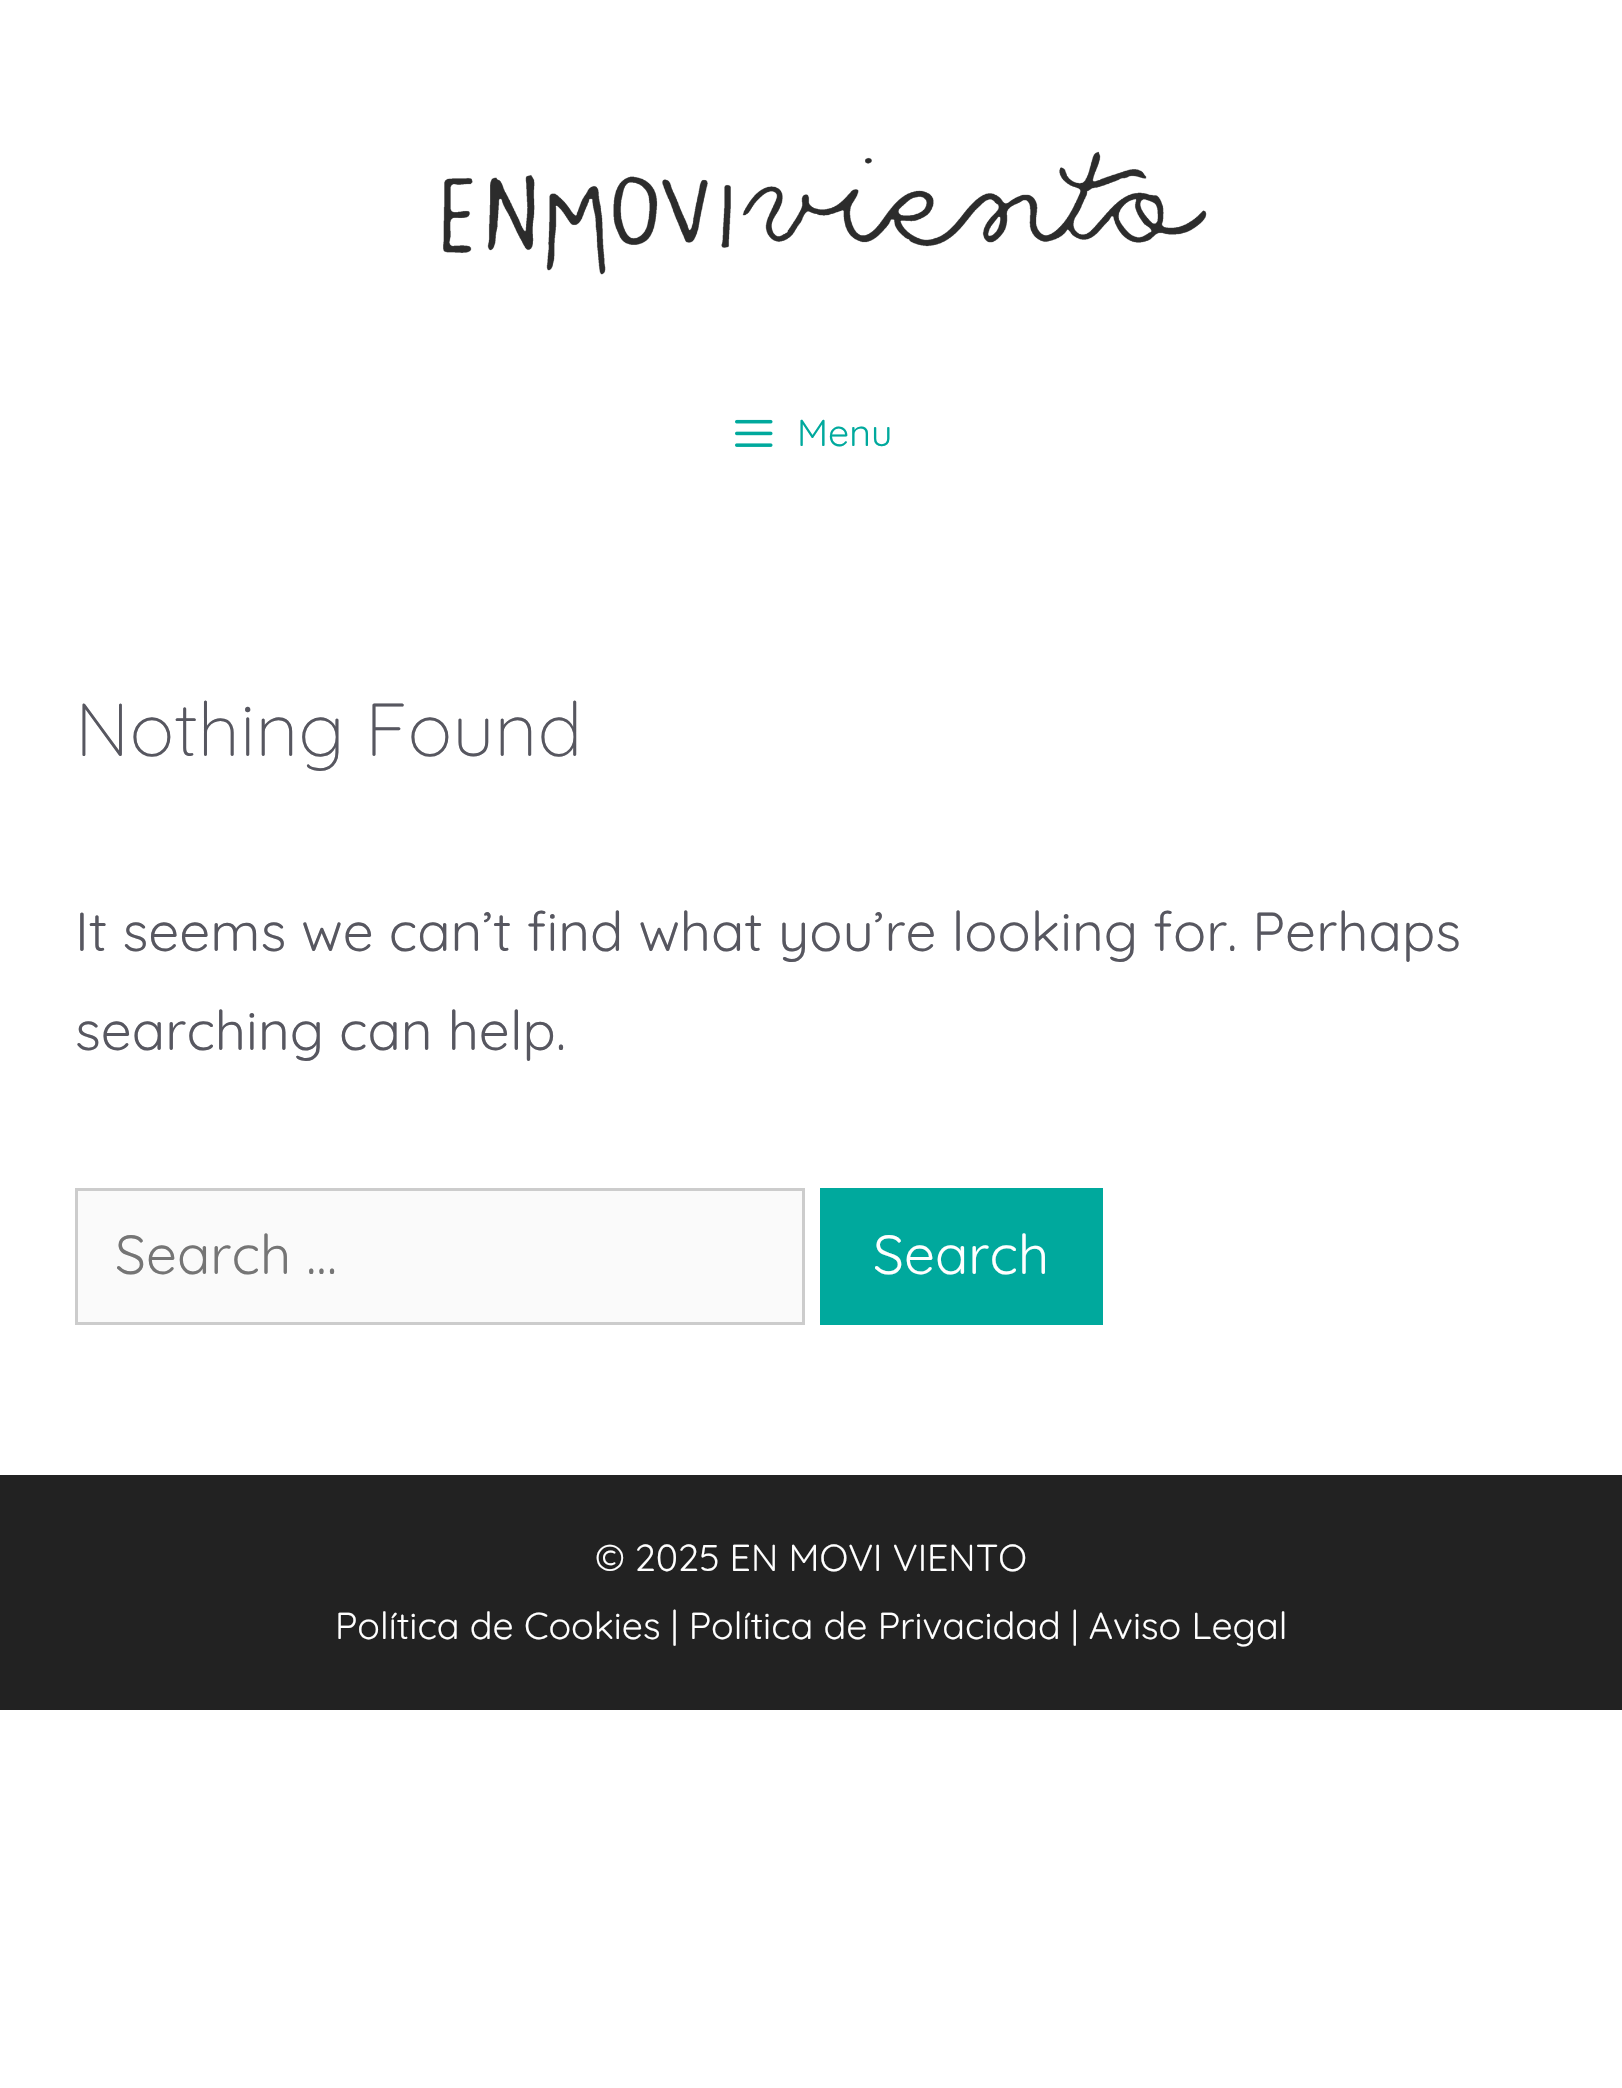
void draw(SkCanvas* canvas) {
    SkPaint paint;
    paint.setAntiAlias(true);
    canvas->clear(0xFFFFFFFF);
    canvas->drawImageRect(SkImages::DeferredFromEncodedData(SkData::MakeFromFileName("img1.png")), SkRect::MakeXYWH(443, 151, 764, 124), SkSamplingOptions());
    canvas->drawImageRect(SkImages::DeferredFromEncodedData(SkData::MakeFromFileName("img2.png")), SkRect::MakeXYWH(735, 419, 38, 28), SkSamplingOptions());
    SkFont font1(fontMgr->matchFamilyStyle("Quicksand", SkFontStyle::Normal()), 37.5f);
    font1.setSubpixel(true);
    paint.setColor(0xFF00A99D);
    canvas->drawString("Menu", 797, 446, font1, paint);
    SkFont font2(fontMgr->matchFamilyStyle("Quicksand", SkFontStyle(300, SkFontStyle::kNormal_Width, SkFontStyle::kUpright_Slant)), 75);
    font2.setSubpixel(true);
    paint.setColor(0xFF575760);
    canvas->drawString("Nothing Found", 75, 756, font2, paint);
    SkFont font3(fontMgr->matchFamilyStyle("Quicksand", SkFontStyle::Normal()), 55);
    font3.setSubpixel(true);
    canvas->drawString("It seems we can’t find what you’re looking for. Perhaps", 75, 951, font3, paint);
    canvas->drawString("searching can help.", 75, 1050, font3, paint);
    paint.setColor(0xFFFAFAFA);
    canvas->drawRect(SkRect::MakeXYWH(76.5f, 1189.5f, 727, 134), paint);
    paint.setStyle(SkPaint::kStroke_Style);
    paint.setStrokeWidth(3);
    paint.setColor(0xFFCCCCCC);
    canvas->drawRect(SkRect::MakeXYWH(76.5f, 1189.5f, 727, 134), paint);
    paint.setStyle(SkPaint::kFill_Style);
    paint.setColor(0xFF757575);
    canvas->drawString("Search …", 115, 1274, font3, paint);
    paint.setColor(0xFF00A99D);
    canvas->drawRect(SkRect::MakeXYWH(820, 1188, 283, 137), paint);
    paint.setColor(0xFFFFFFFF);
    canvas->drawString("Search", 873, 1274, font3, paint);
    paint.setColor(0xFF222222);
    canvas->drawRect(SkRect::MakeXYWH(0, 1475, 1622, 235), paint);
    paint.setColor(0xFFFFFFFF);
    canvas->drawString("© 2025 EN MOVI VIENTO", 595, 1571, font1, paint);
    canvas->drawString("Política de Cookies | Política de Privacidad | Aviso Legal", 335, 1639, font1, paint);
}
